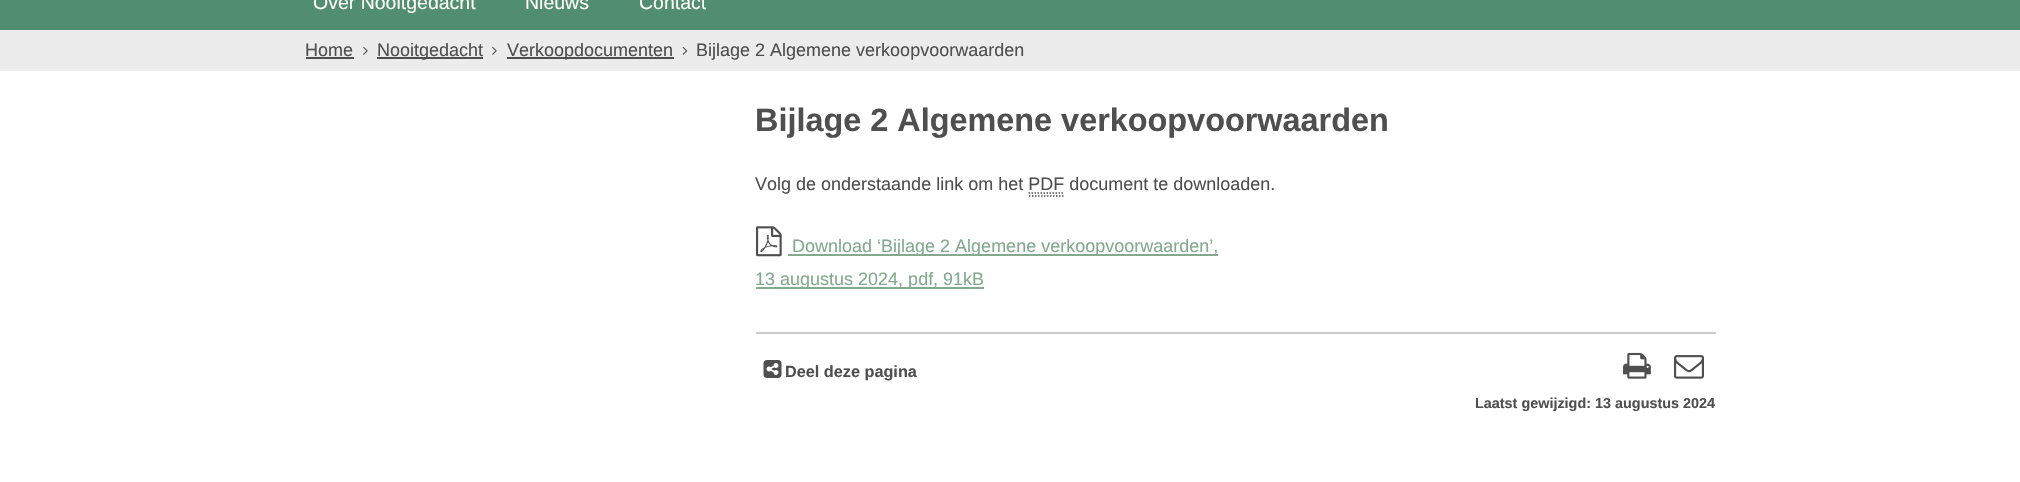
void draw(SkCanvas* canvas) {
    SkPaint paint;
    paint.setAntiAlias(true);
    canvas->clear(0xFFFFFFFF);
    paint.setColor(0xFF518D70);
    canvas->drawRect(SkRect::MakeXYWH(0, 0, 2020, 30), paint);
    SkFont font1(fontMgr->matchFamilyStyle("Liberation Sans", SkFontStyle::Normal()), 19.5f);
    font1.setSubpixel(true);
    paint.setColor(0xFFFDF9F6);
    canvas->drawString("Over Nooitgedacht", 313, 9, font1, paint);
    canvas->drawString("Nieuws", 525, 9, font1, paint);
    canvas->drawString("Contact", 639, 9, font1, paint);
    paint.setColor(0xFFECECEC);
    canvas->drawRect(SkRect::MakeXYWH(0, 30, 2020, 41), paint);
    SkFont font2(fontMgr->matchFamilyStyle("Liberation Sans", SkFontStyle::Normal()), 18);
    font2.setSubpixel(true);
    paint.setColor(0xFF4F4F4F);
    canvas->drawString("Home", 305, 56, font2, paint);
    canvas->drawRect(SkRect::MakeXYWH(306, 57, 48, 2), paint);
    canvas->drawImageRect(SkImages::DeferredFromEncodedData(SkData::MakeFromFileName("img1.png")), SkRect::MakeXYWH(363, 46, 5, 9), SkSamplingOptions());
    canvas->drawRect(SkRect::MakeXYWH(377, 57, 106, 2), paint);
    canvas->drawString("Nooitgedacht", 377, 56, font2, paint);
    canvas->drawImageRect(SkImages::DeferredFromEncodedData(SkData::MakeFromFileName("img1.png")), SkRect::MakeXYWH(492, 46, 5, 9), SkSamplingOptions());
    canvas->drawRect(SkRect::MakeXYWH(507, 57, 167, 2), paint);
    canvas->drawString("Verkoopdocumenten", 507, 56, font2, paint);
    canvas->drawImageRect(SkImages::DeferredFromEncodedData(SkData::MakeFromFileName("img2.png")), SkRect::MakeXYWH(682, 46, 6, 9), SkSamplingOptions());
    canvas->drawString("Bijlage 2 Algemene verkoopvoorwaarden", 696, 56, font2, paint);
    SkFont font3(fontMgr->matchFamilyStyle("Liberation Sans", SkFontStyle::Bold()), 32.4f);
    font3.setSubpixel(true);
    canvas->drawString("Bijlage 2 Algemene verkoopvoorwaarden", 755, 131, font3, paint);
    canvas->drawString("Volg de onderstaande link om het PDF document te downloaden.", 755, 190, font2, paint);
    paint.setStyle(SkPaint::kStroke_Style);
    paint.setStrokeWidth(1.5f);
    paint.setPathEffect(SkDashPathEffect::Make({{1.5f, 1.5f}}, 0));
    canvas->drawPath(SkPathBuilder().moveTo(1029, 196).lineTo(1065, 196).moveTo(1028.5f, 193).lineTo(1064.5f, 193).detach(), paint);
    paint.setPathEffect(nullptr);
    canvas->drawImageRect(SkImages::DeferredFromEncodedData(SkData::MakeFromFileName("img3.png")), SkRect::MakeXYWH(756, 226, 26, 31), SkSamplingOptions());
    paint.setStyle(SkPaint::kFill_Style);
    paint.setColor(0xFF83AA8F);
    canvas->drawRect(SkRect::MakeXYWH(788, 254, 430, 2), paint);
    canvas->drawString("Download ‘Bijlage 2 Algemene verkoopvoorwaarden’,", 792, 252, font2, paint);
    canvas->drawRect(SkRect::MakeXYWH(756, 287, 177, 2), paint);
    canvas->drawString("13 augustus 2024, pdf", 755, 285, font2, paint);
    canvas->drawRect(SkRect::MakeXYWH(933, 287, 51, 2), paint);
    canvas->drawString(", 91kB", 933, 285, font2, paint);
    paint.setColor(0xFFCCCCCC);
    canvas->drawRect(SkRect::MakeXYWH(756, 332, 960, 2), paint);
    canvas->drawImageRect(SkImages::DeferredFromEncodedData(SkData::MakeFromFileName("img4.png")), SkRect::MakeXYWH(763, 360, 19, 18), SkSamplingOptions());
    SkFont font4(fontMgr->matchFamilyStyle("Liberation Sans", SkFontStyle::Bold()), 16.25f);
    font4.setSubpixel(true);
    paint.setColor(0xFF4F4F4F);
    canvas->drawString("Deel deze pagina", 785, 377, font4, paint);
    canvas->drawImageRect(SkImages::DeferredFromEncodedData(SkData::MakeFromFileName("img5.png")), SkRect::MakeXYWH(1623, 352, 28, 27), SkSamplingOptions());
    canvas->drawImageRect(SkImages::DeferredFromEncodedData(SkData::MakeFromFileName("img6.png")), SkRect::MakeXYWH(1674, 355, 30, 24), SkSamplingOptions());
    SkFont font5(fontMgr->matchFamilyStyle("Liberation Sans", SkFontStyle::Bold()), 14.4f);
    font5.setSubpixel(true);
    canvas->drawString("Laatst gewijzigd: 13 augustus 2024", 1475, 408, font5, paint);
}
